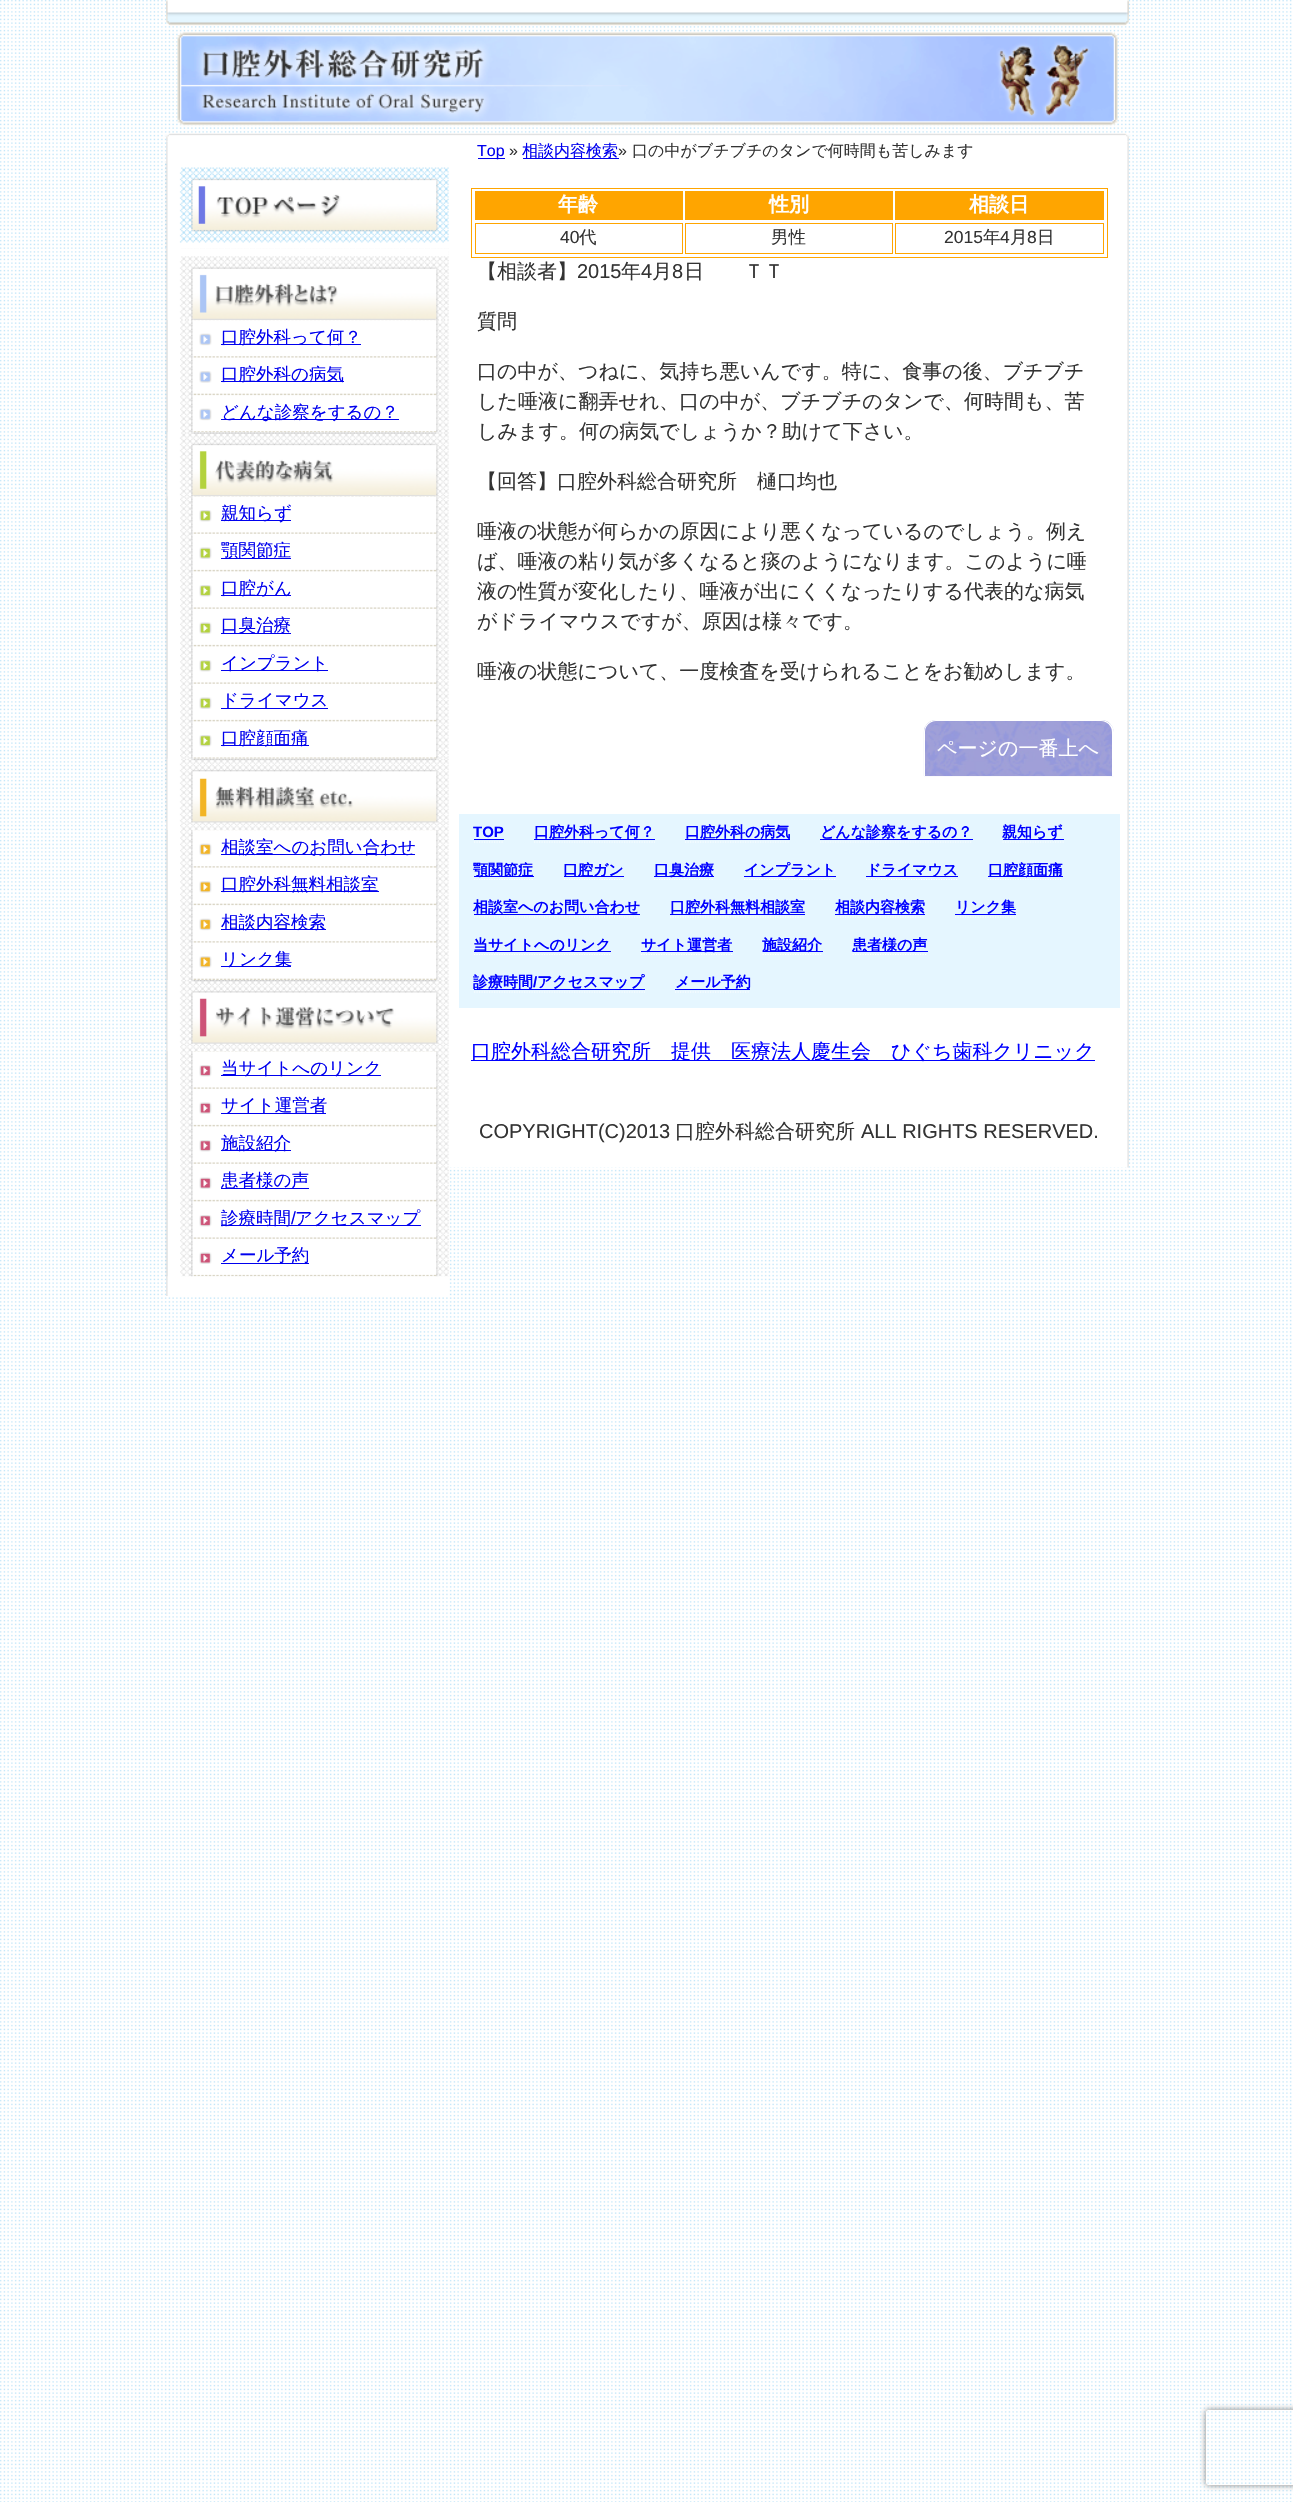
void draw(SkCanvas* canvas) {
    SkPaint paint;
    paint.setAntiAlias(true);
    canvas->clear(0xFFFFFFFF);
    canvas->drawImageRect(SkImages::DeferredFromEncodedData(SkData::MakeFromFileName("img1.png")), SkRect::MakeXYWH(0, 0, 1292, 2502), SkSamplingOptions());
    canvas->drawImageRect(SkImages::DeferredFromEncodedData(SkData::MakeFromFileName("img2.png")), SkRect::MakeXYWH(165, 0, 965, 142), SkSamplingOptions());
    canvas->drawImageRect(SkImages::DeferredFromEncodedData(SkData::MakeFromFileName("img3.png")), SkRect::MakeXYWH(166, 141, 282, 1155), SkSamplingOptions());
    canvas->drawImageRect(SkImages::DeferredFromEncodedData(SkData::MakeFromFileName("img4.png")), SkRect::MakeXYWH(165, 161, 284, 87), SkSamplingOptions());
    canvas->drawImageRect(SkImages::DeferredFromEncodedData(SkData::MakeFromFileName("img5.png")), SkRect::MakeXYWH(180, 248, 269, 185), SkSamplingOptions());
    canvas->drawImageRect(SkImages::DeferredFromEncodedData(SkData::MakeFromFileName("img6.png")), SkRect::MakeXYWH(165, 248, 284, 72), SkSamplingOptions());
    canvas->drawImageRect(SkImages::DeferredFromEncodedData(SkData::MakeFromFileName("img7.png")), SkRect::MakeXYWH(165, 320, 273, 113), SkSamplingOptions());
    canvas->drawImageRect(SkImages::DeferredFromEncodedData(SkData::MakeFromFileName("img8.png")), SkRect::MakeXYWH(199, 333, 13, 13), SkSamplingOptions());
    paint.setColor(0xFF0000EE);
    canvas->drawRect(SkRect::MakeXYWH(221, 344, 140, 1), paint);
    SkFont font1(fontMgr->matchFamilyStyle("WenQuanYi Zen Hei", SkFontStyle(500, SkFontStyle::kNormal_Width, SkFontStyle::kUpright_Slant)), 17.5f);
    font1.setSubpixel(true);
    canvas->drawString("口腔外科って何？", 221, 343, font1, paint);
    canvas->drawImageRect(SkImages::DeferredFromEncodedData(SkData::MakeFromFileName("img9.png")), SkRect::MakeXYWH(199, 371, 13, 12), SkSamplingOptions());
    canvas->drawRect(SkRect::MakeXYWH(221, 381, 123, 1), paint);
    canvas->drawString("口腔外科の病気", 221, 380, font1, paint);
    canvas->drawImageRect(SkImages::DeferredFromEncodedData(SkData::MakeFromFileName("img8.png")), SkRect::MakeXYWH(199, 408, 13, 13), SkSamplingOptions());
    canvas->drawRect(SkRect::MakeXYWH(221, 419, 178, 1), paint);
    canvas->drawString("どんな診察をするの？", 221, 418, font1, paint);
    canvas->drawImageRect(SkImages::DeferredFromEncodedData(SkData::MakeFromFileName("img10.png")), SkRect::MakeXYWH(180, 432, 269, 327), SkSamplingOptions());
    canvas->drawImageRect(SkImages::DeferredFromEncodedData(SkData::MakeFromFileName("img11.png")), SkRect::MakeXYWH(165, 432, 284, 65), SkSamplingOptions());
    canvas->drawImageRect(SkImages::DeferredFromEncodedData(SkData::MakeFromFileName("img12.png")), SkRect::MakeXYWH(165, 496, 273, 263), SkSamplingOptions());
    canvas->drawImageRect(SkImages::DeferredFromEncodedData(SkData::MakeFromFileName("img13.png")), SkRect::MakeXYWH(199, 510, 13, 12), SkSamplingOptions());
    canvas->drawRect(SkRect::MakeXYWH(221, 520, 70, 1), paint);
    canvas->drawString("親知らず", 221, 519, font1, paint);
    canvas->drawImageRect(SkImages::DeferredFromEncodedData(SkData::MakeFromFileName("img14.png")), SkRect::MakeXYWH(199, 547, 13, 12), SkSamplingOptions());
    canvas->drawRect(SkRect::MakeXYWH(221, 558, 70, 1), paint);
    canvas->drawString("顎関節症", 221, 556, font1, paint);
    canvas->drawImageRect(SkImages::DeferredFromEncodedData(SkData::MakeFromFileName("img15.png")), SkRect::MakeXYWH(199, 585, 13, 12), SkSamplingOptions());
    canvas->drawRect(SkRect::MakeXYWH(221, 595, 70, 1), paint);
    canvas->drawString("口腔がん", 221, 594, font1, paint);
    canvas->drawImageRect(SkImages::DeferredFromEncodedData(SkData::MakeFromFileName("img14.png")), SkRect::MakeXYWH(199, 622, 13, 12), SkSamplingOptions());
    canvas->drawRect(SkRect::MakeXYWH(221, 633, 70, 1), paint);
    canvas->drawString("口臭治療", 221, 631, font1, paint);
    canvas->drawImageRect(SkImages::DeferredFromEncodedData(SkData::MakeFromFileName("img13.png")), SkRect::MakeXYWH(199, 660, 13, 12), SkSamplingOptions());
    canvas->drawRect(SkRect::MakeXYWH(221, 670, 107, 1), paint);
    canvas->drawString("インプラント", 221, 669, font1, paint);
    canvas->drawImageRect(SkImages::DeferredFromEncodedData(SkData::MakeFromFileName("img14.png")), SkRect::MakeXYWH(199, 697, 13, 12), SkSamplingOptions());
    canvas->drawRect(SkRect::MakeXYWH(221, 708, 107, 1), paint);
    canvas->drawString("ドライマウス", 221, 706, font1, paint);
    canvas->drawImageRect(SkImages::DeferredFromEncodedData(SkData::MakeFromFileName("img13.png")), SkRect::MakeXYWH(199, 735, 13, 12), SkSamplingOptions());
    canvas->drawRect(SkRect::MakeXYWH(221, 745, 88, 1), paint);
    canvas->drawString("口腔顔面痛", 221, 744, font1, paint);
    canvas->drawImageRect(SkImages::DeferredFromEncodedData(SkData::MakeFromFileName("img16.png")), SkRect::MakeXYWH(180, 761, 269, 219), SkSamplingOptions());
    canvas->drawImageRect(SkImages::DeferredFromEncodedData(SkData::MakeFromFileName("img17.png")), SkRect::MakeXYWH(165, 758, 284, 65), SkSamplingOptions());
    canvas->drawImageRect(SkImages::DeferredFromEncodedData(SkData::MakeFromFileName("img18.png")), SkRect::MakeXYWH(165, 830, 273, 150), SkSamplingOptions());
    canvas->drawImageRect(SkImages::DeferredFromEncodedData(SkData::MakeFromFileName("img19.png")), SkRect::MakeXYWH(199, 843, 13, 13), SkSamplingOptions());
    canvas->drawRect(SkRect::MakeXYWH(221, 854, 194, 1), paint);
    canvas->drawString("相談室へのお問い合わせ", 221, 853, font1, paint);
    canvas->drawImageRect(SkImages::DeferredFromEncodedData(SkData::MakeFromFileName("img20.png")), SkRect::MakeXYWH(199, 881, 13, 12), SkSamplingOptions());
    canvas->drawRect(SkRect::MakeXYWH(221, 891, 158, 1), paint);
    canvas->drawString("口腔外科無料相談室", 221, 890, font1, paint);
    canvas->drawImageRect(SkImages::DeferredFromEncodedData(SkData::MakeFromFileName("img19.png")), SkRect::MakeXYWH(199, 918, 13, 13), SkSamplingOptions());
    canvas->drawRect(SkRect::MakeXYWH(221, 929, 105, 1), paint);
    canvas->drawString("相談内容検索", 221, 928, font1, paint);
    canvas->drawImageRect(SkImages::DeferredFromEncodedData(SkData::MakeFromFileName("img20.png")), SkRect::MakeXYWH(199, 956, 13, 12), SkSamplingOptions());
    canvas->drawRect(SkRect::MakeXYWH(221, 966, 70, 1), paint);
    canvas->drawString("リンク集", 221, 965, font1, paint);
    canvas->drawImageRect(SkImages::DeferredFromEncodedData(SkData::MakeFromFileName("img21.png")), SkRect::MakeXYWH(180, 980, 269, 297), SkSamplingOptions());
    canvas->drawImageRect(SkImages::DeferredFromEncodedData(SkData::MakeFromFileName("img22.png")), SkRect::MakeXYWH(165, 980, 284, 64), SkSamplingOptions());
    canvas->drawImageRect(SkImages::DeferredFromEncodedData(SkData::MakeFromFileName("img23.png")), SkRect::MakeXYWH(165, 1051, 273, 226), SkSamplingOptions());
    canvas->drawImageRect(SkImages::DeferredFromEncodedData(SkData::MakeFromFileName("img24.png")), SkRect::MakeXYWH(199, 1065, 13, 12), SkSamplingOptions());
    canvas->drawRect(SkRect::MakeXYWH(221, 1075, 160, 1), paint);
    canvas->drawString("当サイトへのリンク", 221, 1074, font1, paint);
    canvas->drawImageRect(SkImages::DeferredFromEncodedData(SkData::MakeFromFileName("img25.png")), SkRect::MakeXYWH(199, 1102, 13, 12), SkSamplingOptions());
    canvas->drawRect(SkRect::MakeXYWH(221, 1113, 105, 1), paint);
    canvas->drawString("サイト運営者", 221, 1111, font1, paint);
    canvas->drawImageRect(SkImages::DeferredFromEncodedData(SkData::MakeFromFileName("img24.png")), SkRect::MakeXYWH(199, 1140, 13, 12), SkSamplingOptions());
    canvas->drawRect(SkRect::MakeXYWH(221, 1150, 70, 1), paint);
    canvas->drawString("施設紹介", 221, 1149, font1, paint);
    canvas->drawImageRect(SkImages::DeferredFromEncodedData(SkData::MakeFromFileName("img26.png")), SkRect::MakeXYWH(199, 1177, 13, 12), SkSamplingOptions());
    canvas->drawRect(SkRect::MakeXYWH(221, 1188, 88, 1), paint);
    canvas->drawString("患者様の声", 221, 1186, font1, paint);
    canvas->drawImageRect(SkImages::DeferredFromEncodedData(SkData::MakeFromFileName("img24.png")), SkRect::MakeXYWH(199, 1215, 13, 12), SkSamplingOptions());
    canvas->drawRect(SkRect::MakeXYWH(221, 1225, 200, 1), paint);
    canvas->drawString("診療時間", 221, 1224, font1, paint);
    SkFont font2(fontMgr->matchFamilyStyle("Liberation Sans", SkFontStyle::Normal()), 17.5f);
    font2.setSubpixel(true);
    canvas->drawString("/", 291, 1224, font2, paint);
    canvas->drawString("アクセスマップ", 295, 1224, font1, paint);
    canvas->drawImageRect(SkImages::DeferredFromEncodedData(SkData::MakeFromFileName("img25.png")), SkRect::MakeXYWH(199, 1252, 13, 12), SkSamplingOptions());
    canvas->drawRect(SkRect::MakeXYWH(221, 1263, 88, 1), paint);
    canvas->drawString("メール予約", 221, 1261, font1, paint);
    canvas->drawImageRect(SkImages::DeferredFromEncodedData(SkData::MakeFromFileName("img27.png")), SkRect::MakeXYWH(448, 141, 681, 1027), SkSamplingOptions());
    canvas->drawRect(SkRect::MakeXYWH(478, 158, 27, 1), paint);
    SkFont font3(fontMgr->matchFamilyStyle("Liberation Sans", SkFontStyle::Normal()), 16);
    font3.setSubpixel(true);
    canvas->drawString("Top", 477, 156, font3, paint);
    paint.setColor(0xFF333333);
    canvas->drawString("»", 509, 156, font3, paint);
    paint.setColor(0xFF0000EE);
    canvas->drawRect(SkRect::MakeXYWH(523, 158, 96, 1), paint);
    SkFont font4(fontMgr->matchFamilyStyle("WenQuanYi Zen Hei", SkFontStyle(500, SkFontStyle::kNormal_Width, SkFontStyle::kUpright_Slant)), 16);
    font4.setSubpixel(true);
    canvas->drawString("相談内容検索", 522, 156, font4, paint);
    paint.setColor(0xFF333333);
    canvas->drawString("»", 618, 156, font3, paint);
    canvas->drawString("口の中がブチブチのタンで何時間も苦しみます", 632, 156, font4, paint);
    paint.setStyle(SkPaint::kStroke_Style);
    paint.setStrokeWidth(1);
    paint.setColor(0xFFFFA500);
    canvas->drawRect(SkRect::MakeXYWH(471.5f, 188.5f, 636, 69), paint);
    paint.setStyle(SkPaint::kFill_Style);
    canvas->drawRect(SkRect::MakeXYWH(475, 191, 208, 29), paint);
    SkFont font5(fontMgr->matchFamilyStyle("WenQuanYi Zen Hei", SkFontStyle::Bold()), 20);
    font5.setSubpixel(true);
    paint.setColor(0xFFFFFFFF);
    canvas->drawString("年齢", 558, 211, font5, paint);
    paint.setColor(0xFFFFA500);
    canvas->drawRect(SkRect::MakeXYWH(685, 191, 208, 29), paint);
    paint.setColor(0xFFFFFFFF);
    canvas->drawString("性別", 769, 211, font5, paint);
    paint.setColor(0xFFFFA500);
    canvas->drawRect(SkRect::MakeXYWH(895, 191, 209, 29), paint);
    paint.setColor(0xFFFFFFFF);
    canvas->drawString("相談日", 969, 211, font5, paint);
    paint.setStyle(SkPaint::kStroke_Style);
    paint.setColor(0xFFFFA500);
    canvas->drawRect(SkRect::MakeXYWH(475.5f, 223.5f, 207, 30), paint);
    paint.setStyle(SkPaint::kFill_Style);
    paint.setColor(0xFF333333);
    canvas->drawString("40", 560, 243, font2, paint);
    canvas->drawString("代", 579, 243, font1, paint);
    paint.setStyle(SkPaint::kStroke_Style);
    paint.setColor(0xFFFFA500);
    canvas->drawRect(SkRect::MakeXYWH(685.5f, 223.5f, 207, 30), paint);
    paint.setStyle(SkPaint::kFill_Style);
    paint.setColor(0xFF333333);
    canvas->drawString("男性", 771, 243, font1, paint);
    paint.setStyle(SkPaint::kStroke_Style);
    paint.setColor(0xFFFFA500);
    canvas->drawRect(SkRect::MakeXYWH(895.5f, 223.5f, 208, 30), paint);
    paint.setStyle(SkPaint::kFill_Style);
    paint.setColor(0xFF333333);
    canvas->drawString("2015", 944, 243, font2, paint);
    canvas->drawString("年", 983, 243, font1, paint);
    canvas->drawString("4", 1000, 243, font2, paint);
    canvas->drawString("月", 1010, 243, font1, paint);
    canvas->drawString("8", 1027, 243, font2, paint);
    canvas->drawString("日", 1037, 243, font1, paint);
    SkFont font6(fontMgr->matchFamilyStyle("WenQuanYi Zen Hei", SkFontStyle(500, SkFontStyle::kNormal_Width, SkFontStyle::kUpright_Slant)), 20);
    font6.setSubpixel(true);
    canvas->drawString("【相談者】", 477, 278, font6, paint);
    SkFont font7(fontMgr->matchFamilyStyle("Liberation Sans", SkFontStyle::Normal()), 20);
    font7.setSubpixel(true);
    canvas->drawString("2015", 577, 278, font7, paint);
    canvas->drawString("年", 621, 278, font6, paint);
    canvas->drawString("4", 641, 278, font7, paint);
    canvas->drawString("月", 652, 278, font6, paint);
    canvas->drawString("8", 672, 278, font7, paint);
    canvas->drawString("日　　ＴＴ", 684, 278, font6, paint);
    canvas->drawString("質問", 477, 328, font6, paint);
    canvas->drawString("口の中が、つねに、気持ち悪いんです。特に、食事の後、ブチブチ", 477, 378, font6, paint);
    canvas->drawString("した唾液に翻弄せれ、口の中が、ブチブチのタンで、何時間も、苦", 477, 408, font6, paint);
    canvas->drawString("しみます。何の病気でしょうか？助けて下さい。", 477, 438, font6, paint);
    canvas->drawString("【回答】口腔外科総合研究所　樋口均也", 477, 488, font6, paint);
    canvas->drawString("唾液の状態が何らかの原因により悪くなっているのでしょう。例え", 477, 538, font6, paint);
    canvas->drawString("ば、唾液の粘り気が多くなると痰のようになります。このように唾", 477, 568, font6, paint);
    canvas->drawString("液の性質が変化したり、唾液が出にくくなったりする代表的な病気", 477, 598, font6, paint);
    canvas->drawString("がドライマウスですが、原因は様々です。", 477, 628, font6, paint);
    canvas->drawString("唾液の状態について、一度検査を受けられることをお勧めします。", 477, 678, font6, paint);
    canvas->drawImageRect(SkImages::DeferredFromEncodedData(SkData::MakeFromFileName("img28.png")), SkRect::MakeXYWH(923, 720, 191, 57), SkSamplingOptions());
    paint.setColor(0xFFFFFFFF);
    canvas->drawPath(SkPathBuilder(SkPathFillType::kEvenOdd).moveTo(936, 720).lineTo(1101, 720).cubicTo(1108, 720, 1114, 726, 1114, 732).lineTo(1114, 776).lineTo(924, 776).lineTo(924, 732).cubicTo(924, 726, 929, 720, 936, 720).close().moveTo(936, 721).lineTo(1101, 721).cubicTo(1107, 721, 1112, 726, 1112, 732).lineTo(1112, 776).lineTo(925, 776).lineTo(925, 732).cubicTo(925, 726, 930, 721, 936, 721).close().detach(), paint);
    canvas->drawString("ページの一番上へ", 937, 755, font6, paint);
    paint.setColor(0xFFE5F6FF);
    canvas->drawRect(SkRect::MakeXYWH(459, 814, 661, 194), paint);
    SkFont font8(fontMgr->matchFamilyStyle("Liberation Sans", SkFontStyle::Bold()), 15);
    font8.setSubpixel(true);
    paint.setColor(0xFF0000FF);
    canvas->drawString("TOP", 473, 837, font8, paint);
    paint.setStyle(SkPaint::kStroke_Style);
    paint.setStrokeWidth(1.2f);
    paint.setColor(0xFFFFFFFF);
    paint.setPathEffect(SkDashPathEffect::Make({{1.25f, 1.25f}}, 0));
    canvas->drawPath(SkPathBuilder().moveTo(474, 842).lineTo(504, 842).detach(), paint);
    paint.setPathEffect(nullptr);
    paint.setStyle(SkPaint::kFill_Style);
    paint.setColor(0xFF0000FF);
    canvas->drawRect(SkRect::MakeXYWH(474, 839, 30, 1), paint);
    canvas->drawRect(SkRect::MakeXYWH(534, 839, 121, 1), paint);
    SkFont font9(fontMgr->matchFamilyStyle("WenQuanYi Zen Hei", SkFontStyle::Bold()), 15);
    font9.setSubpixel(true);
    canvas->drawString("口腔外科って何？", 534, 837, font9, paint);
    paint.setStyle(SkPaint::kStroke_Style);
    paint.setColor(0xFFFFFFFF);
    paint.setPathEffect(SkDashPathEffect::Make({{1.25f, 1.25f}}, 0));
    canvas->drawPath(SkPathBuilder().moveTo(534, 842).lineTo(655, 842).detach(), paint);
    paint.setPathEffect(nullptr);
    paint.setStyle(SkPaint::kFill_Style);
    paint.setColor(0xFF0000FF);
    canvas->drawRect(SkRect::MakeXYWH(685, 839, 105, 1), paint);
    canvas->drawString("口腔外科の病気", 685, 837, font9, paint);
    paint.setStyle(SkPaint::kStroke_Style);
    paint.setColor(0xFFFFFFFF);
    paint.setPathEffect(SkDashPathEffect::Make({{1.25f, 1.25f}}, 0));
    canvas->drawPath(SkPathBuilder().moveTo(685, 842).lineTo(790, 842).detach(), paint);
    paint.setPathEffect(nullptr);
    paint.setStyle(SkPaint::kFill_Style);
    paint.setColor(0xFF0000FF);
    canvas->drawRect(SkRect::MakeXYWH(820, 839, 153, 1), paint);
    canvas->drawString("どんな診察をするの？", 820, 837, font9, paint);
    paint.setStyle(SkPaint::kStroke_Style);
    paint.setColor(0xFFFFFFFF);
    paint.setPathEffect(SkDashPathEffect::Make({{1.25f, 1.25f}}, 0));
    canvas->drawPath(SkPathBuilder().moveTo(820, 842).lineTo(972.5f, 842).detach(), paint);
    paint.setPathEffect(nullptr);
    paint.setStyle(SkPaint::kFill_Style);
    paint.setColor(0xFF0000FF);
    canvas->drawRect(SkRect::MakeXYWH(1003, 839, 61, 1), paint);
    canvas->drawString("親知らず", 1002, 837, font9, paint);
    paint.setStyle(SkPaint::kStroke_Style);
    paint.setColor(0xFFFFFFFF);
    paint.setPathEffect(SkDashPathEffect::Make({{1.25f, 1.25f}}, 0));
    canvas->drawPath(SkPathBuilder().moveTo(1002.5f, 842).lineTo(1064, 842).detach(), paint);
    paint.setPathEffect(nullptr);
    paint.setStyle(SkPaint::kFill_Style);
    paint.setColor(0xFF0000FF);
    canvas->drawRect(SkRect::MakeXYWH(474, 876, 60, 1), paint);
    canvas->drawString("顎関節症", 473, 875, font9, paint);
    paint.setStyle(SkPaint::kStroke_Style);
    paint.setColor(0xFFFFFFFF);
    paint.setPathEffect(SkDashPathEffect::Make({{1.25f, 1.25f}}, 0));
    canvas->drawPath(SkPathBuilder().moveTo(474, 879.5f).lineTo(534, 879.5f).detach(), paint);
    paint.setPathEffect(nullptr);
    paint.setStyle(SkPaint::kFill_Style);
    paint.setColor(0xFF0000FF);
    canvas->drawRect(SkRect::MakeXYWH(564, 876, 60, 1), paint);
    canvas->drawString("口腔ガン", 563, 875, font9, paint);
    paint.setStyle(SkPaint::kStroke_Style);
    paint.setColor(0xFFFFFFFF);
    paint.setPathEffect(SkDashPathEffect::Make({{1.25f, 1.25f}}, 0));
    canvas->drawPath(SkPathBuilder().moveTo(564, 879.5f).lineTo(624, 879.5f).detach(), paint);
    paint.setPathEffect(nullptr);
    paint.setStyle(SkPaint::kFill_Style);
    paint.setColor(0xFF0000FF);
    canvas->drawRect(SkRect::MakeXYWH(654, 876, 60, 1), paint);
    canvas->drawString("口臭治療", 654, 875, font9, paint);
    paint.setStyle(SkPaint::kStroke_Style);
    paint.setColor(0xFFFFFFFF);
    paint.setPathEffect(SkDashPathEffect::Make({{1.25f, 1.25f}}, 0));
    canvas->drawPath(SkPathBuilder().moveTo(654, 879.5f).lineTo(714, 879.5f).detach(), paint);
    paint.setPathEffect(nullptr);
    paint.setStyle(SkPaint::kFill_Style);
    paint.setColor(0xFF0000FF);
    canvas->drawRect(SkRect::MakeXYWH(744, 876, 92, 1), paint);
    canvas->drawString("インプラント", 744, 875, font9, paint);
    paint.setStyle(SkPaint::kStroke_Style);
    paint.setColor(0xFFFFFFFF);
    paint.setPathEffect(SkDashPathEffect::Make({{1.25f, 1.25f}}, 0));
    canvas->drawPath(SkPathBuilder().moveTo(744, 879.5f).lineTo(836, 879.5f).detach(), paint);
    paint.setPathEffect(nullptr);
    paint.setStyle(SkPaint::kFill_Style);
    paint.setColor(0xFF0000FF);
    canvas->drawRect(SkRect::MakeXYWH(866, 876, 92, 1), paint);
    canvas->drawString("ドライマウス", 866, 875, font9, paint);
    paint.setStyle(SkPaint::kStroke_Style);
    paint.setColor(0xFFFFFFFF);
    paint.setPathEffect(SkDashPathEffect::Make({{1.25f, 1.25f}}, 0));
    canvas->drawPath(SkPathBuilder().moveTo(866, 879.5f).lineTo(957.5f, 879.5f).detach(), paint);
    paint.setPathEffect(nullptr);
    paint.setStyle(SkPaint::kFill_Style);
    paint.setColor(0xFF0000FF);
    canvas->drawRect(SkRect::MakeXYWH(988, 876, 75, 1), paint);
    canvas->drawString("口腔顔面痛", 988, 875, font9, paint);
    paint.setStyle(SkPaint::kStroke_Style);
    paint.setColor(0xFFFFFFFF);
    paint.setPathEffect(SkDashPathEffect::Make({{1.25f, 1.25f}}, 0));
    canvas->drawPath(SkPathBuilder().moveTo(987.5f, 879.5f).lineTo(1062.5f, 879.5f).detach(), paint);
    paint.setPathEffect(nullptr);
    paint.setStyle(SkPaint::kFill_Style);
    paint.setColor(0xFF0000FF);
    canvas->drawRect(SkRect::MakeXYWH(474, 914, 166, 1), paint);
    canvas->drawString("相談室へのお問い合わせ", 473, 912, font9, paint);
    paint.setStyle(SkPaint::kStroke_Style);
    paint.setColor(0xFFFFFFFF);
    paint.setPathEffect(SkDashPathEffect::Make({{1.25f, 1.25f}}, 0));
    canvas->drawPath(SkPathBuilder().moveTo(474, 917).lineTo(640, 917).detach(), paint);
    paint.setPathEffect(nullptr);
    paint.setStyle(SkPaint::kFill_Style);
    paint.setColor(0xFF0000FF);
    canvas->drawRect(SkRect::MakeXYWH(670, 914, 135, 1), paint);
    canvas->drawString("口腔外科無料相談室", 670, 912, font9, paint);
    paint.setStyle(SkPaint::kStroke_Style);
    paint.setColor(0xFFFFFFFF);
    paint.setPathEffect(SkDashPathEffect::Make({{1.25f, 1.25f}}, 0));
    canvas->drawPath(SkPathBuilder().moveTo(670, 917).lineTo(805, 917).detach(), paint);
    paint.setPathEffect(nullptr);
    paint.setStyle(SkPaint::kFill_Style);
    paint.setColor(0xFF0000FF);
    canvas->drawRect(SkRect::MakeXYWH(835, 914, 90, 1), paint);
    canvas->drawString("相談内容検索", 835, 912, font9, paint);
    paint.setStyle(SkPaint::kStroke_Style);
    paint.setColor(0xFFFFFFFF);
    paint.setPathEffect(SkDashPathEffect::Make({{1.25f, 1.25f}}, 0));
    canvas->drawPath(SkPathBuilder().moveTo(835, 917).lineTo(925, 917).detach(), paint);
    paint.setPathEffect(nullptr);
    paint.setStyle(SkPaint::kFill_Style);
    paint.setColor(0xFF0000FF);
    canvas->drawRect(SkRect::MakeXYWH(955, 914, 61, 1), paint);
    canvas->drawString("リンク集", 955, 912, font9, paint);
    paint.setStyle(SkPaint::kStroke_Style);
    paint.setColor(0xFFFFFFFF);
    paint.setPathEffect(SkDashPathEffect::Make({{1.25f, 1.25f}}, 0));
    canvas->drawPath(SkPathBuilder().moveTo(955, 917).lineTo(1016, 917).detach(), paint);
    paint.setPathEffect(nullptr);
    paint.setStyle(SkPaint::kFill_Style);
    paint.setColor(0xFF0000FF);
    canvas->drawRect(SkRect::MakeXYWH(474, 951, 137, 1), paint);
    canvas->drawString("当サイトへのリンク", 473, 950, font9, paint);
    paint.setStyle(SkPaint::kStroke_Style);
    paint.setColor(0xFFFFFFFF);
    paint.setPathEffect(SkDashPathEffect::Make({{1.25f, 1.25f}}, 0));
    canvas->drawPath(SkPathBuilder().moveTo(474, 954.5f).lineTo(611, 954.5f).detach(), paint);
    paint.setPathEffect(nullptr);
    paint.setStyle(SkPaint::kFill_Style);
    paint.setColor(0xFF0000FF);
    canvas->drawRect(SkRect::MakeXYWH(641, 951, 92, 1), paint);
    canvas->drawString("サイト運営者", 641, 950, font9, paint);
    paint.setStyle(SkPaint::kStroke_Style);
    paint.setColor(0xFFFFFFFF);
    paint.setPathEffect(SkDashPathEffect::Make({{1.25f, 1.25f}}, 0));
    canvas->drawPath(SkPathBuilder().moveTo(641, 954.5f).lineTo(732.5f, 954.5f).detach(), paint);
    paint.setPathEffect(nullptr);
    paint.setStyle(SkPaint::kFill_Style);
    paint.setColor(0xFF0000FF);
    canvas->drawRect(SkRect::MakeXYWH(763, 951, 60, 1), paint);
    canvas->drawString("施設紹介", 762, 950, font9, paint);
    paint.setStyle(SkPaint::kStroke_Style);
    paint.setColor(0xFFFFFFFF);
    paint.setPathEffect(SkDashPathEffect::Make({{1.25f, 1.25f}}, 0));
    canvas->drawPath(SkPathBuilder().moveTo(762.5f, 954.5f).lineTo(822.5f, 954.5f).detach(), paint);
    paint.setPathEffect(nullptr);
    paint.setStyle(SkPaint::kFill_Style);
    paint.setColor(0xFF0000FF);
    canvas->drawRect(SkRect::MakeXYWH(853, 951, 75, 1), paint);
    canvas->drawString("患者様の声", 852, 950, font9, paint);
    paint.setStyle(SkPaint::kStroke_Style);
    paint.setColor(0xFFFFFFFF);
    paint.setPathEffect(SkDashPathEffect::Make({{1.25f, 1.25f}}, 0));
    canvas->drawPath(SkPathBuilder().moveTo(852.5f, 954.5f).lineTo(927.5f, 954.5f).detach(), paint);
    paint.setPathEffect(nullptr);
    paint.setStyle(SkPaint::kFill_Style);
    paint.setColor(0xFF0000FF);
    canvas->drawRect(SkRect::MakeXYWH(474, 989, 171, 1), paint);
    canvas->drawString("診療時間", 473, 987, font9, paint);
    paint.setStyle(SkPaint::kStroke_Style);
    paint.setColor(0xFFFFFFFF);
    paint.setPathEffect(SkDashPathEffect::Make({{1.25f, 1.25f}}, 0));
    canvas->drawPath(SkPathBuilder().moveTo(474, 992).lineTo(645, 992).detach(), paint);
    paint.setPathEffect(nullptr);
    paint.setStyle(SkPaint::kFill_Style);
    paint.setColor(0xFF0000FF);
    canvas->drawString("/", 533, 987, font8, paint);
    canvas->drawString("アクセスマップ", 537, 987, font9, paint);
    canvas->drawString("メール予約", 675, 987, font9, paint);
    paint.setStyle(SkPaint::kStroke_Style);
    paint.setColor(0xFFFFFFFF);
    paint.setPathEffect(SkDashPathEffect::Make({{1.25f, 1.25f}}, 0));
    canvas->drawPath(SkPathBuilder().moveTo(675, 992).lineTo(750, 992).detach(), paint);
    paint.setPathEffect(nullptr);
    paint.setStyle(SkPaint::kFill_Style);
    paint.setColor(0xFF0000FF);
    canvas->drawRect(SkRect::MakeXYWH(675, 989, 75, 1), paint);
    canvas->drawRect(SkRect::MakeXYWH(471, 1060, 624, 1), paint);
    canvas->drawString("口腔外科総合研究所　提供　医療法人慶生会　ひぐち歯科クリニック", 471, 1058, font6, paint);
    paint.setColor(0xFF333333);
    canvas->drawString("COPYRIGHT(C)2013", 479, 1138, font7, paint);
    canvas->drawString("口腔外科総合研究所", 675, 1138, font6, paint);
    canvas->drawString("ALL RIGHTS RESERVED.", 861, 1138, font7, paint);
    canvas->save();
    canvas->clipPath(SkPathBuilder(SkPathFillType::kEvenOdd).moveTo(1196, 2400).lineTo(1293, 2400).lineTo(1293, 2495).lineTo(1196, 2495).close().moveTo(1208.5f, 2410).lineTo(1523.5f, 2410).cubicTo(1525, 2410, 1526, 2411, 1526, 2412.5f).lineTo(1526, 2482.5f).cubicTo(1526, 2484, 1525, 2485, 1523.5f, 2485).lineTo(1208.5f, 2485).cubicTo(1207, 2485, 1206, 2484, 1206, 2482.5f).lineTo(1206, 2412.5f).cubicTo(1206, 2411, 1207, 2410, 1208.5f, 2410).close().detach(), true);
    paint.setColor(0xFF808080);
    paint.setMaskFilter(SkMaskFilter::MakeBlur(kNormal_SkBlurStyle, 3));
    canvas->drawRoundRect(SkRect::MakeXYWH(1206, 2410, 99, 75), 2.5f, 2.5f, paint);
    paint.setMaskFilter(nullptr);
    canvas->restore();
}
